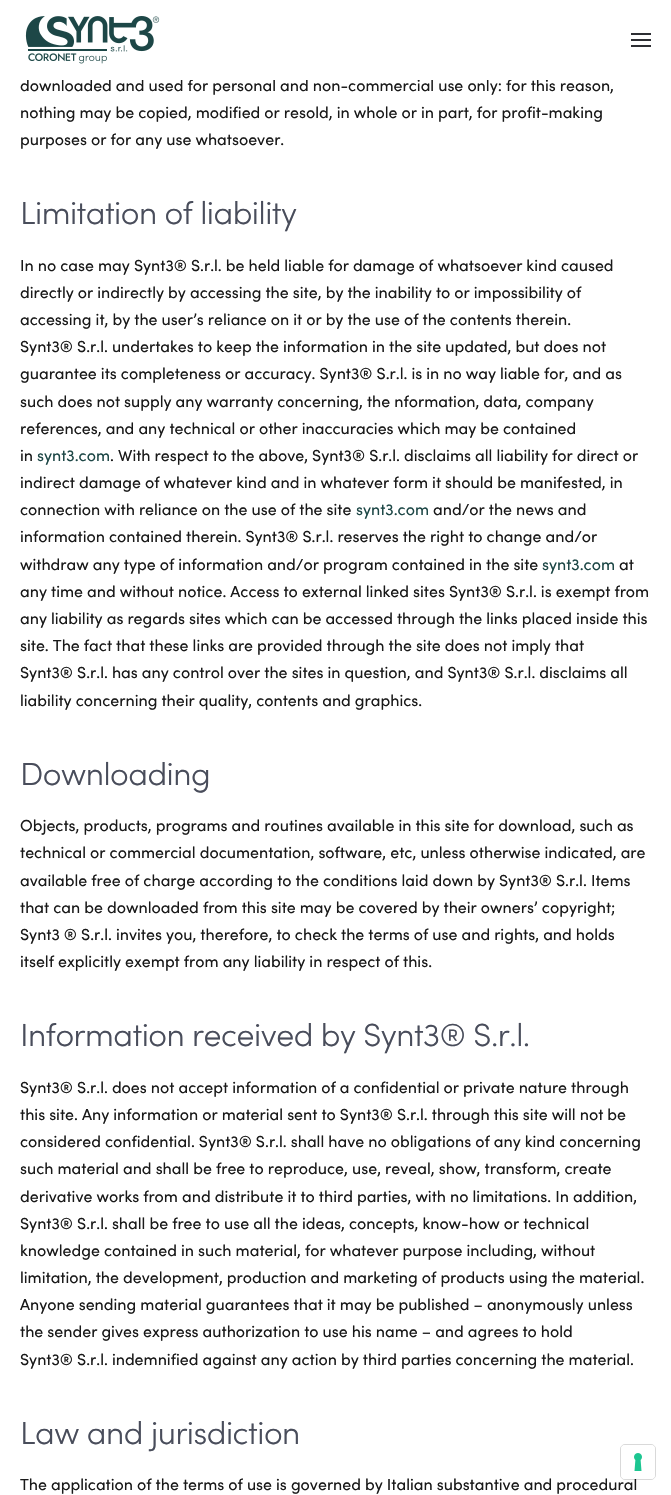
void draw(SkCanvas* canvas) {
    SkPaint paint;
    paint.setAntiAlias(true);
    auto spacedText = [&](const char* s, float x, float y, const SkFont& font, const SkPaint& ink, float letter, float word) {
        std::vector<SkGlyphID> glyphs(font.countText(s, strlen(s), SkTextEncoding::kUTF8));
        std::vector<float> xs(glyphs.size());
        font.textToGlyphs(s, strlen(s), SkTextEncoding::kUTF8, glyphs);
        font.getXPos(glyphs, xs, x);
        float extra = 0;
        for (size_t i = 0; i < glyphs.size(); i++) {
            xs[i] += extra;
            extra += letter + word * (glyphs[i] == font.unicharToGlyph(' '));
        }
        canvas->drawTextBlob(SkTextBlob::MakeFromPosHGlyphs(glyphs, xs, y, font), 0, 0, ink);
    };
    canvas->clear(0xFFFFFFFF);
    SkFont font1(fontMgr->matchFamilyStyle("Sofia", SkFontStyle::Normal()), 16);
    font1.setSubpixel(true);
    paint.setColor(0xFF191919);
    canvas->drawString("downloaded and used for personal and non-commercial use only: for this reason,", 20, 91, font1, paint);
    paint.setColor(0xFFFFFFFF);
    canvas->drawRect(SkRect::MakeXYWH(27, 79, 521, 1), paint);
    canvas->drawImageRect(SkImages::DeferredFromEncodedData(SkData::MakeFromFileName("img1.png")), SkRect::MakeXYWH(25, 16, 135, 48), SkSamplingOptions());
    paint.setColor(0xFF2D2E33);
    canvas->drawRect(SkRect::MakeXYWH(631, 33, 20, 2), paint);
    canvas->drawRect(SkRect::MakeXYWH(631, 39, 20, 2), paint);
    canvas->drawRect(SkRect::MakeXYWH(631, 45, 20, 2), paint);
    paint.setColor(0xFF191919);
    canvas->drawString("nothing may be copied, modified or resold, in whole or in part, for profit-making", 20, 118, font1, paint);
    canvas->drawString("purposes or for any use whatsoever.", 20, 145, font1, paint);
    SkFont font2(fontMgr->matchFamilyStyle("Sofia", SkFontStyle(300, SkFontStyle::kNormal_Width, SkFontStyle::kUpright_Slant)), 32);
    font2.setSubpixel(true);
    paint.setColor(0xFF494D5B);
    spacedText("Limitation of liability", 20, 224, font2, paint, -0.5f, 0);
    paint.setColor(0xFF191919);
    canvas->drawString("In no case may Synt3® S.r.l. be held liable for damage of whatsoever kind caused", 20, 271, font1, paint);
    canvas->drawString("directly or indirectly by accessing the site, by the inability to or impossibility of", 20, 298, font1, paint);
    canvas->drawString("accessing it, by the user’s reliance on it or by the use of the contents therein.", 20, 325, font1, paint);
    canvas->drawString("Synt3® S.r.l. undertakes to keep the information in the site updated, but does not", 20, 352, font1, paint);
    canvas->drawString("guarantee its completeness or accuracy. Synt3® S.r.l. is in no way liable for, and as", 20, 379, font1, paint);
    canvas->drawString("such does not supply any warranty concerning, the nformation, data, company", 20, 407, font1, paint);
    canvas->drawString("references, and any technical or other inaccuracies which may be contained", 20, 434, font1, paint);
    canvas->drawString("in", 20, 461, font1, paint);
    paint.setColor(0xFF1D4746);
    canvas->drawString("synt3.com", 37, 461, font1, paint);
    paint.setColor(0xFF191919);
    canvas->drawString(". With respect to the above, Synt3® S.r.l. disclaims all liability for direct or", 110, 461, font1, paint);
    canvas->drawString("indirect damage of whatever kind and in whatever form it should be manifested, in", 20, 488, font1, paint);
    canvas->drawString("connection with reliance on the use of the site", 20, 515, font1, paint);
    paint.setColor(0xFF1D4746);
    canvas->drawString("synt3.com", 356, 515, font1, paint);
    paint.setColor(0xFF191919);
    canvas->drawString("and/or the news and", 433, 515, font1, paint);
    canvas->drawString("information contained therein. Synt3® S.r.l. reserves the right to change and/or", 20, 542, font1, paint);
    canvas->drawString("withdraw any type of information and/or program contained in the site", 20, 570, font1, paint);
    paint.setColor(0xFF1D4746);
    canvas->drawString("synt3.com", 542, 570, font1, paint);
    paint.setColor(0xFF191919);
    canvas->drawString("at", 619, 570, font1, paint);
    canvas->drawString("any time and without notice. Access to external linked sites Synt3® S.r.l. is exempt from", 20, 597, font1, paint);
    canvas->drawString("any liability as regards sites which can be accessed through the links placed inside this", 20, 624, font1, paint);
    canvas->drawString("site. The fact that these links are provided through the site does not imply that", 20, 651, font1, paint);
    canvas->drawString("Synt3® S.r.l. has any control over the sites in question, and Synt3® S.r.l. disclaims all", 20, 678, font1, paint);
    canvas->drawString("liability concerning their quality, contents and graphics.", 20, 706, font1, paint);
    paint.setColor(0xFF494D5B);
    spacedText("Downloading", 20, 785, font2, paint, -0.5f, 0);
    paint.setColor(0xFF191919);
    canvas->drawString("Objects, products, programs and routines available in this site for download, such as", 20, 831, font1, paint);
    canvas->drawString("technical or commercial documentation, software, etc, unless otherwise indicated, are", 20, 858, font1, paint);
    canvas->drawString("available free of charge according to the conditions laid down by Synt3® S.r.l. Items", 20, 886, font1, paint);
    canvas->drawString("that can be downloaded from this site may be covered by their owners’ copyright;", 20, 913, font1, paint);
    canvas->drawString("Synt3 ® S.r.l. invites you, therefore, to check the terms of use and rights, and holds", 20, 940, font1, paint);
    canvas->drawString("itself explicitly exempt from any liability in respect of this.", 20, 967, font1, paint);
    paint.setColor(0xFF494D5B);
    spacedText("Information received by Synt3® S.r.l.", 20, 1046, font2, paint, -0.5f, 0);
    paint.setColor(0xFF191919);
    canvas->drawString("Synt3® S.r.l. does not accept information of a confidential or private nature through", 20, 1093, font1, paint);
    canvas->drawString("this site. Any information or material sent to Synt3® S.r.l. through this site will not be", 20, 1120, font1, paint);
    canvas->drawString("considered confidential. Synt3® S.r.l. shall have no obligations of any kind concerning", 20, 1147, font1, paint);
    canvas->drawString("such material and shall be free to reproduce, use, reveal, show, transform, create", 20, 1174, font1, paint);
    canvas->drawString("derivative works from and distribute it to third parties, with no limitations. In addition,", 20, 1202, font1, paint);
    canvas->drawString("Synt3® S.r.l. shall be free to use all the ideas, concepts, know-how or technical", 20, 1229, font1, paint);
    canvas->drawString("knowledge contained in such material, for whatever purpose including, without", 20, 1256, font1, paint);
    canvas->drawString("limitation, the development, production and marketing of products using the material.", 20, 1283, font1, paint);
    canvas->drawString("Anyone sending material guarantees that it may be published – anonymously unless", 20, 1310, font1, paint);
    canvas->drawString("the sender gives express authorization to use his name – and agrees to hold", 20, 1337, font1, paint);
    canvas->drawString("Synt3® S.r.l. indemnified against any action by third parties concerning the material.", 20, 1365, font1, paint);
    paint.setColor(0xFF494D5B);
    spacedText("Law and jurisdiction", 20, 1444, font2, paint, -0.5f, 0);
    paint.setColor(0xFF191919);
    canvas->drawString("The application of the terms of use is governed by Italian substantive and procedural", 20, 1490, font1, paint);
    paint.setStyle(SkPaint::kStroke_Style);
    paint.setStrokeWidth(1);
    paint.setColor(0x26000000);
    canvas->drawRoundRect(SkRect::MakeXYWH(620.5f, 1444.5f, 35, 35), 4.5f, 4.5f, paint);
    paint.setStyle(SkPaint::kFill_Style);
    paint.setColor(0xFFFFFFFF);
    canvas->drawRoundRect(SkRect::MakeXYWH(621, 1445, 34, 34), 4, 4, paint);
    canvas->drawImageRect(SkImages::DeferredFromEncodedData(SkData::MakeFromFileName("img2.png")), SkRect::MakeXYWH(634, 1453, 8, 18), SkSamplingOptions());
}
